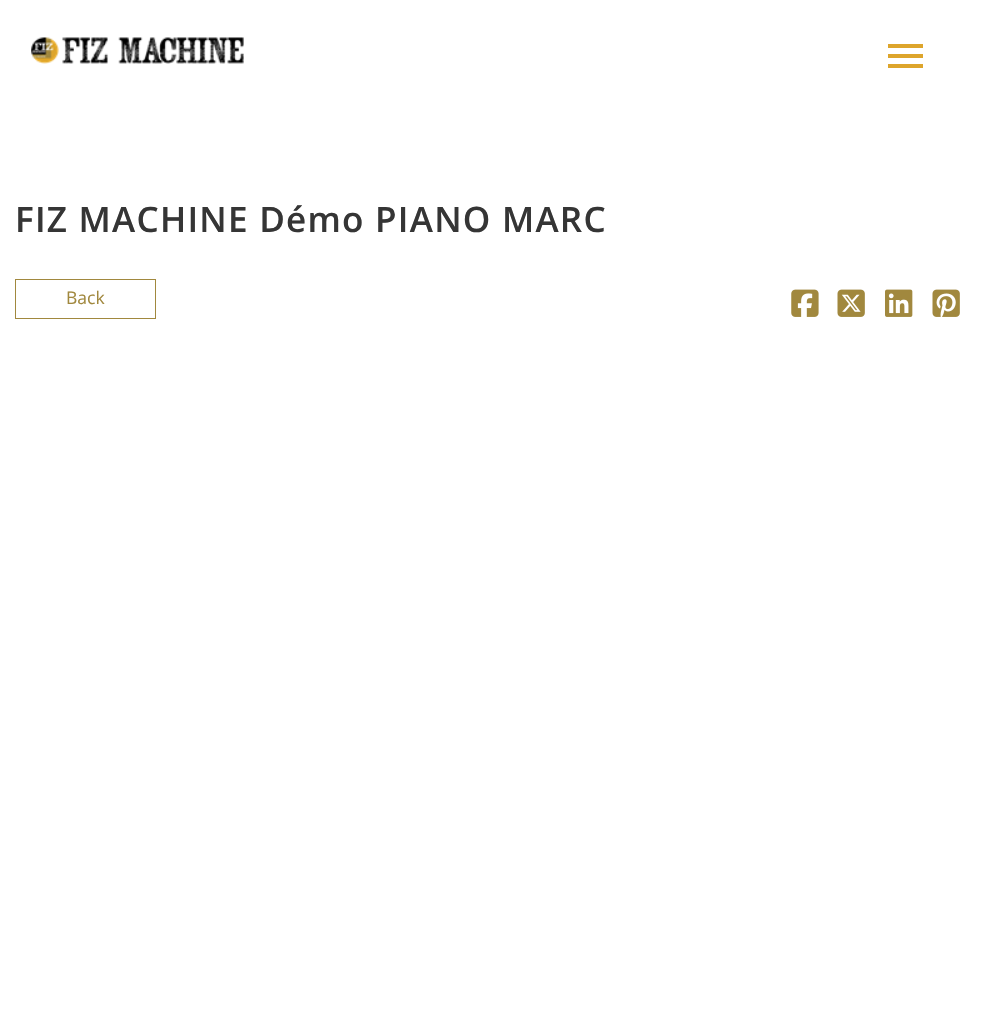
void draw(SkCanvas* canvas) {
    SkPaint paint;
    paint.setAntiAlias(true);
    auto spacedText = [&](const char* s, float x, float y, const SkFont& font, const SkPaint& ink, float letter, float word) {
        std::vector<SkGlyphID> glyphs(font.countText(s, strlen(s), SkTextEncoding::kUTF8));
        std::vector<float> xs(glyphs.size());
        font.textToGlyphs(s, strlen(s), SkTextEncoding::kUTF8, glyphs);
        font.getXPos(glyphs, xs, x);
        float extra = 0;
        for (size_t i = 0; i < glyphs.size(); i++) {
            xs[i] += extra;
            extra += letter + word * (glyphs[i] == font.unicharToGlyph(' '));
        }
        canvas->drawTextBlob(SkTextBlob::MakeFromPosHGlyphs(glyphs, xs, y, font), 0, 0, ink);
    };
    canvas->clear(0xFFFFFFFF);
    canvas->drawImageRect(SkImages::DeferredFromEncodedData(SkData::MakeFromFileName("img1.png")), SkRect::MakeXYWH(31, 37, 213, 27), SkSamplingOptions());
    paint.setColor(0xFFDDA52C);
    canvas->drawRect(SkRect::MakeXYWH(888, 44, 35, 4), paint);
    canvas->drawRect(SkRect::MakeXYWH(888, 54, 35, 4), paint);
    canvas->drawRect(SkRect::MakeXYWH(888, 64, 35, 4), paint);
    SkFont font1(fontMgr->matchFamilyStyle("Open Sans", SkFontStyle(600, SkFontStyle::kNormal_Width, SkFontStyle::kUpright_Slant)), 35);
    font1.setSubpixel(true);
    paint.setColor(0xFF353535);
    spacedText("FIZ MACHINE Démo PIANO MARC", 15, 232, font1, paint, 1.25f, 0);
    paint.setStyle(SkPaint::kStroke_Style);
    paint.setStrokeWidth(1);
    paint.setColor(0xFFA1883E);
    canvas->drawRect(SkRect::MakeXYWH(15.5f, 279.5f, 140, 39), paint);
    SkFont font2(fontMgr->matchFamilyStyle("Open Sans", SkFontStyle::Normal()), 17.5f);
    font2.setSubpixel(true);
    paint.setStyle(SkPaint::kFill_Style);
    canvas->drawString("Back", 66, 304, font2, paint);
    canvas->drawImageRect(SkImages::DeferredFromEncodedData(SkData::MakeFromFileName("img2.png")), SkRect::MakeXYWH(791, 289, 28, 28), SkSamplingOptions());
    canvas->drawImageRect(SkImages::DeferredFromEncodedData(SkData::MakeFromFileName("img3.png")), SkRect::MakeXYWH(837, 289, 28, 28), SkSamplingOptions());
    canvas->drawImageRect(SkImages::DeferredFromEncodedData(SkData::MakeFromFileName("img4.png")), SkRect::MakeXYWH(885, 289, 28, 28), SkSamplingOptions());
    canvas->drawImageRect(SkImages::DeferredFromEncodedData(SkData::MakeFromFileName("img5.png")), SkRect::MakeXYWH(932, 289, 28, 28), SkSamplingOptions());
}
